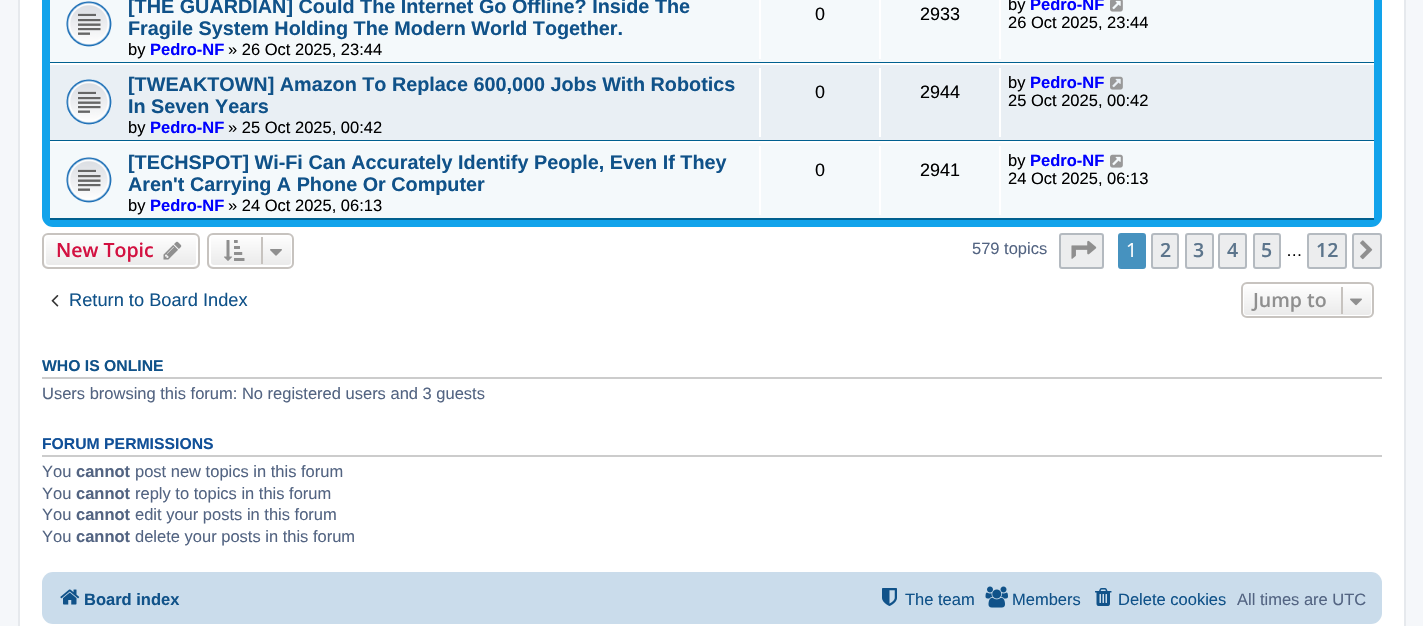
void draw(SkCanvas* canvas) {
    SkPaint paint;
    paint.setAntiAlias(true);
    canvas->clear(0xFFF5F7FA);
    paint.setColor(0xFFFFFFFF);
    canvas->drawRect(SkRect::MakeXYWH(19, -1, 1386, 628), paint);
    paint.setStyle(SkPaint::kStroke_Style);
    paint.setStrokeWidth(2);
    paint.setColor(0xFFE6E9ED);
    canvas->drawRect(SkRect::MakeXYWH(19, -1, 1386, 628), paint);
    paint.setStyle(SkPaint::kFill_Style);
    {
        const SkColor colors[] = {0xFF6ACEFF, 0xFF0076B1, 0xFF12A3EB, 0xFF12A3EB};
        const float stops[] = {0, 0, 0.03f, 1};
        const SkPoint ends[] = {{712, -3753}, {712, 227}};
        paint.setShader(SkGradientShader::MakeLinear(ends, colors, stops, 4, SkTileMode::kClamp));
        paint.setAlpha(255);
    }
    canvas->drawRoundRect(SkRect::MakeXYWH(42, -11, 1340, 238), 11, 11, paint);
    paint.setShader(nullptr);
    paint.setColor(0xFFF4F9FB);
    canvas->drawRect(SkRect::MakeXYWH(50, 0, 1324, 62), paint);
    paint.setColor(0xFF00608F);
    canvas->drawRect(SkRect::MakeXYWH(50, 62, 1324, 1), paint);
    canvas->drawImageRect(SkImages::DeferredFromEncodedData(SkData::MakeFromFileName("img1.png")), SkRect::MakeXYWH(66, 1, 46, 46), SkSamplingOptions());
    SkFont font1(fontMgr->matchFamilyStyle("Liberation Sans", SkFontStyle::Bold()), 19.8f);
    font1.setSubpixel(true);
    paint.setColor(0xFF105289);
    canvas->drawString("[THE GUARDIAN] Could The Internet Go Offline? Inside The", 128, 13, font1, paint);
    canvas->drawString("Fragile System Holding The Modern World Together.", 128, 35, font1, paint);
    SkFont font2(fontMgr->matchFamilyStyle("Liberation Sans", SkFontStyle::Normal()), 16.5f);
    font2.setSubpixel(true);
    paint.setColor(0xFF000000);
    canvas->drawString("by", 128, 55, font2, paint);
    SkFont font3(fontMgr->matchFamilyStyle("Liberation Sans", SkFontStyle::Bold()), 16.5f);
    font3.setSubpixel(true);
    paint.setColor(0xFF0000FF);
    canvas->drawString("Pedro-NF", 150, 55, font3, paint);
    paint.setColor(0xFF000000);
    canvas->drawString("» 26 Oct 2025, 23:44", 228, 55, font2, paint);
    paint.setColor(0xFFFFFFFF);
    canvas->drawRect(SkRect::MakeXYWH(759, 0, 2, 59), paint);
    SkFont font4(fontMgr->matchFamilyStyle("Liberation Sans", SkFontStyle::Normal()), 18);
    font4.setSubpixel(true);
    paint.setColor(0xFF000000);
    canvas->drawString("0", 815, 20, font4, paint);
    paint.setColor(0xFFFFFFFF);
    canvas->drawRect(SkRect::MakeXYWH(879, 0, 2, 59), paint);
    paint.setColor(0xFF000000);
    canvas->drawString("2933", 920, 20, font4, paint);
    paint.setColor(0xFFFFFFFF);
    canvas->drawRect(SkRect::MakeXYWH(999, 0, 2, 59), paint);
    paint.setColor(0xFF000000);
    canvas->drawString("by", 1008, 10, font2, paint);
    paint.setColor(0xFF0000FF);
    canvas->drawString("Pedro-NF", 1030, 10, font3, paint);
    canvas->drawImageRect(SkImages::DeferredFromEncodedData(SkData::MakeFromFileName("img2.png")), SkRect::MakeXYWH(1110, 0, 13, 12), SkSamplingOptions());
    paint.setColor(0xFF000000);
    canvas->drawString("26 Oct 2025, 23:44", 1008, 28, font2, paint);
    paint.setColor(0xFFE9EFF4);
    canvas->drawRect(SkRect::MakeXYWH(50, 65, 1324, 75), paint);
    paint.setColor(0xFFFFFFFF);
    canvas->drawRect(SkRect::MakeXYWH(50, 63, 1324, 2), paint);
    paint.setColor(0xFF00608F);
    canvas->drawRect(SkRect::MakeXYWH(50, 140, 1324, 1), paint);
    canvas->drawImageRect(SkImages::DeferredFromEncodedData(SkData::MakeFromFileName("img3.png")), SkRect::MakeXYWH(66, 79, 46, 46), SkSamplingOptions());
    paint.setColor(0xFF105289);
    canvas->drawString("[TWEAKTOWN] Amazon To Replace 600,000 Jobs With Robotics", 128, 91, font1, paint);
    canvas->drawString("In Seven Years", 128, 113, font1, paint);
    paint.setColor(0xFF000000);
    canvas->drawString("by", 128, 133, font2, paint);
    paint.setColor(0xFF0000FF);
    canvas->drawString("Pedro-NF", 150, 133, font3, paint);
    paint.setColor(0xFF000000);
    canvas->drawString("» 25 Oct 2025, 00:42", 228, 133, font2, paint);
    paint.setColor(0xFFFFFFFF);
    canvas->drawRect(SkRect::MakeXYWH(759, 68, 2, 69), paint);
    paint.setColor(0xFF000000);
    canvas->drawString("0", 815, 98, font4, paint);
    paint.setColor(0xFFFFFFFF);
    canvas->drawRect(SkRect::MakeXYWH(879, 68, 2, 69), paint);
    paint.setColor(0xFF000000);
    canvas->drawString("2944", 920, 98, font4, paint);
    paint.setColor(0xFFFFFFFF);
    canvas->drawRect(SkRect::MakeXYWH(999, 68, 2, 69), paint);
    paint.setColor(0xFF000000);
    canvas->drawString("by", 1008, 88, font2, paint);
    paint.setColor(0xFF0000FF);
    canvas->drawString("Pedro-NF", 1030, 88, font3, paint);
    canvas->drawImageRect(SkImages::DeferredFromEncodedData(SkData::MakeFromFileName("img4.png")), SkRect::MakeXYWH(1110, 76, 13, 14), SkSamplingOptions());
    paint.setColor(0xFF000000);
    canvas->drawString("25 Oct 2025, 00:42", 1008, 106, font2, paint);
    paint.setColor(0xFFF4F9FB);
    canvas->drawRect(SkRect::MakeXYWH(50, 143, 1324, 75), paint);
    paint.setColor(0xFFFFFFFF);
    canvas->drawRect(SkRect::MakeXYWH(50, 141, 1324, 2), paint);
    paint.setColor(0xFF00608F);
    canvas->drawRect(SkRect::MakeXYWH(50, 218, 1324, 2), paint);
    canvas->drawImageRect(SkImages::DeferredFromEncodedData(SkData::MakeFromFileName("img1.png")), SkRect::MakeXYWH(66, 157, 46, 46), SkSamplingOptions());
    paint.setColor(0xFF105289);
    canvas->drawString("[TECHSPOT] Wi-Fi Can Accurately Identify People, Even If They", 128, 169, font1, paint);
    canvas->drawString("Aren't Carrying A Phone Or Computer", 128, 191, font1, paint);
    paint.setColor(0xFF000000);
    canvas->drawString("by", 128, 211, font2, paint);
    paint.setColor(0xFF0000FF);
    canvas->drawString("Pedro-NF", 150, 211, font3, paint);
    paint.setColor(0xFF000000);
    canvas->drawString("» 24 Oct 2025, 06:13", 228, 211, font2, paint);
    paint.setColor(0xFFFFFFFF);
    canvas->drawRect(SkRect::MakeXYWH(759, 146, 2, 69), paint);
    paint.setColor(0xFF000000);
    canvas->drawString("0", 815, 176, font4, paint);
    paint.setColor(0xFFFFFFFF);
    canvas->drawRect(SkRect::MakeXYWH(879, 146, 2, 69), paint);
    paint.setColor(0xFF000000);
    canvas->drawString("2941", 920, 176, font4, paint);
    paint.setColor(0xFFFFFFFF);
    canvas->drawRect(SkRect::MakeXYWH(999, 146, 2, 69), paint);
    paint.setColor(0xFF000000);
    canvas->drawString("by", 1008, 166, font2, paint);
    paint.setColor(0xFF0000FF);
    canvas->drawString("Pedro-NF", 1030, 166, font3, paint);
    canvas->drawImageRect(SkImages::DeferredFromEncodedData(SkData::MakeFromFileName("img5.png")), SkRect::MakeXYWH(1110, 154, 13, 14), SkSamplingOptions());
    paint.setColor(0xFF000000);
    canvas->drawString("24 Oct 2025, 06:13", 1008, 184, font2, paint);
    canvas->save();
    canvas->clipPath(SkPathBuilder().moveTo(48, 233).lineTo(194, 233).cubicTo(197.5f, 233, 200, 235.5f, 200, 239).lineTo(200, 263).cubicTo(200, 266.5f, 197.5f, 269, 194, 269).lineTo(48, 269).cubicTo(44.5f, 269, 42, 266.5f, 42, 263).lineTo(42, 239).cubicTo(42, 235.5f, 44.5f, 233, 48, 233).close().detach(), true);
    {
        const SkColor colors[] = {0xFFFFFFFF, 0xFFE9E9E9};
        const float stops[] = {0, 1};
        const SkPoint ends[] = {{121, 234}, {121, 267}};
        paint.setShader(SkGradientShader::MakeLinear(ends, colors, stops, 2, SkTileMode::kClamp));
        paint.setAlpha(255);
    }
    canvas->drawRect(SkRect::MakeXYWH(42, 234, 158, 33), paint);
    canvas->restore();
    paint.setStyle(SkPaint::kStroke_Style);
    paint.setShader(nullptr);
    paint.setColor(0xFFFFFFFF);
    canvas->drawRoundRect(SkRect::MakeXYWH(45, 235, 152, 31), 4, 4, paint);
    paint.setColor(0xFFC7C3BF);
    canvas->drawRoundRect(SkRect::MakeXYWH(43, 234, 156, 34), 5, 5, paint);
    SkFont font5(fontMgr->matchFamilyStyle("Open Sans", SkFontStyle(600, SkFontStyle::kNormal_Width, SkFontStyle::kUpright_Slant)), 19.5f);
    font5.setSubpixel(true);
    paint.setStyle(SkPaint::kFill_Style);
    paint.setColor(0xFFD31141);
    canvas->drawString("New Topic", 56, 257, font5, paint);
    canvas->drawImageRect(SkImages::DeferredFromEncodedData(SkData::MakeFromFileName("img6.png")), SkRect::MakeXYWH(163, 241, 19, 19), SkSamplingOptions());
    canvas->save();
    canvas->clipPath(SkPathBuilder().moveTo(213, 233).lineTo(288, 233).cubicTo(291.5f, 233, 294, 235.5f, 294, 239).lineTo(294, 263).cubicTo(294, 266.5f, 291.5f, 269, 288, 269).lineTo(213, 269).cubicTo(209.5f, 269, 207, 266.5f, 207, 263).lineTo(207, 239).cubicTo(207, 235.5f, 209.5f, 233, 213, 233).close().detach(), true);
    {
        const SkColor colors[] = {0xFFFFFFFF, 0xFFE9E9E9};
        const float stops[] = {0, 1};
        const SkPoint ends[] = {{251, 234}, {251, 267}};
        paint.setShader(SkGradientShader::MakeLinear(ends, colors, stops, 2, SkTileMode::kClamp));
        paint.setAlpha(255);
    }
    canvas->drawRect(SkRect::MakeXYWH(207, 234, 87, 33), paint);
    canvas->restore();
    paint.setStyle(SkPaint::kStroke_Style);
    paint.setShader(nullptr);
    paint.setColor(0xFFFFFFFF);
    canvas->drawRoundRect(SkRect::MakeXYWH(210, 235, 82, 31), 4, 4, paint);
    paint.setColor(0xFFC7C3BF);
    canvas->drawRoundRect(SkRect::MakeXYWH(208, 234, 85, 34), 5, 5, paint);
    canvas->drawImageRect(SkImages::DeferredFromEncodedData(SkData::MakeFromFileName("img7.png")), SkRect::MakeXYWH(224, 240, 21, 21), SkSamplingOptions());
    paint.setStyle(SkPaint::kFill_Style);
    canvas->drawRect(SkRect::MakeXYWH(261, 237, 2, 27), paint);
    canvas->drawImageRect(SkImages::DeferredFromEncodedData(SkData::MakeFromFileName("img8.png")), SkRect::MakeXYWH(270, 249, 12, 7), SkSamplingOptions());
    paint.setColor(0xFF536482);
    canvas->drawString("579 topics", 972, 254, font2, paint);
    paint.setColor(0xFFECEDEE);
    canvas->drawRoundRect(SkRect::MakeXYWH(1060, 234, 43, 34), 2, 2, paint);
    paint.setStyle(SkPaint::kStroke_Style);
    paint.setColor(0xFFB4BAC0);
    canvas->drawRoundRect(SkRect::MakeXYWH(1060, 234, 43, 34), 2, 2, paint);
    canvas->drawImageRect(SkImages::DeferredFromEncodedData(SkData::MakeFromFileName("img9.png")), SkRect::MakeXYWH(1071, 240, 26, 19), SkSamplingOptions());
    paint.setStyle(SkPaint::kFill_Style);
    paint.setColor(0xFF4692BF);
    canvas->drawRoundRect(SkRect::MakeXYWH(1119, 234, 26, 34), 2, 2, paint);
    paint.setStyle(SkPaint::kStroke_Style);
    canvas->drawRoundRect(SkRect::MakeXYWH(1119, 234, 26, 34), 2, 2, paint);
    SkFont font6(fontMgr->matchFamilyStyle("Open Sans", SkFontStyle::Normal()), 19.5f);
    font6.setSubpixel(true);
    paint.setStyle(SkPaint::kFill_Style);
    paint.setColor(0xFFFFFFFF);
    canvas->drawString("1", 1126, 257, font6, paint);
    paint.setColor(0xFFECEDEE);
    canvas->drawRoundRect(SkRect::MakeXYWH(1152, 234, 26, 34), 2, 2, paint);
    paint.setStyle(SkPaint::kStroke_Style);
    paint.setColor(0xFFB4BAC0);
    canvas->drawRoundRect(SkRect::MakeXYWH(1152, 234, 26, 34), 2, 2, paint);
    paint.setStyle(SkPaint::kFill_Style);
    paint.setColor(0xFF5C758C);
    canvas->drawString("2", 1160, 257, font5, paint);
    paint.setColor(0xFFECEDEE);
    canvas->drawRoundRect(SkRect::MakeXYWH(1186, 234, 27, 34), 2, 2, paint);
    paint.setStyle(SkPaint::kStroke_Style);
    paint.setColor(0xFFB4BAC0);
    canvas->drawRoundRect(SkRect::MakeXYWH(1186, 234, 27, 34), 2, 2, paint);
    paint.setStyle(SkPaint::kFill_Style);
    paint.setColor(0xFF5C758C);
    canvas->drawString("3", 1193, 257, font5, paint);
    paint.setColor(0xFFECEDEE);
    canvas->drawRoundRect(SkRect::MakeXYWH(1219, 234, 27, 34), 2, 2, paint);
    paint.setStyle(SkPaint::kStroke_Style);
    paint.setColor(0xFFB4BAC0);
    canvas->drawRoundRect(SkRect::MakeXYWH(1219, 234, 27, 34), 2, 2, paint);
    paint.setStyle(SkPaint::kFill_Style);
    paint.setColor(0xFF5C758C);
    canvas->drawString("4", 1227, 257, font5, paint);
    paint.setColor(0xFFECEDEE);
    canvas->drawRoundRect(SkRect::MakeXYWH(1254, 234, 26, 34), 2, 2, paint);
    paint.setStyle(SkPaint::kStroke_Style);
    paint.setColor(0xFFB4BAC0);
    canvas->drawRoundRect(SkRect::MakeXYWH(1254, 234, 26, 34), 2, 2, paint);
    paint.setStyle(SkPaint::kFill_Style);
    paint.setColor(0xFF5C758C);
    canvas->drawString("5", 1261, 257, font5, paint);
    paint.setColor(0xFF000000);
    canvas->drawString("…", 1286, 256, font2, paint);
    paint.setColor(0xFFECEDEE);
    canvas->drawRoundRect(SkRect::MakeXYWH(1308, 234, 38, 34), 2, 2, paint);
    paint.setStyle(SkPaint::kStroke_Style);
    paint.setColor(0xFFB4BAC0);
    canvas->drawRoundRect(SkRect::MakeXYWH(1308, 234, 38, 34), 2, 2, paint);
    paint.setStyle(SkPaint::kFill_Style);
    paint.setColor(0xFF5C758C);
    canvas->drawString("12", 1316, 257, font5, paint);
    paint.setColor(0xFFECEDEE);
    canvas->drawRoundRect(SkRect::MakeXYWH(1353, 234, 28, 34), 2, 2, paint);
    paint.setStyle(SkPaint::kStroke_Style);
    paint.setColor(0xFFB4BAC0);
    canvas->drawRoundRect(SkRect::MakeXYWH(1353, 234, 28, 34), 2, 2, paint);
    canvas->drawImageRect(SkImages::DeferredFromEncodedData(SkData::MakeFromFileName("img10.png")), SkRect::MakeXYWH(1360, 240, 13, 20), SkSamplingOptions());
    canvas->drawImageRect(SkImages::DeferredFromEncodedData(SkData::MakeFromFileName("img11.png")), SkRect::MakeXYWH(51, 295, 8, 12), SkSamplingOptions());
    SkFont font7(fontMgr->matchFamilyStyle("Liberation Sans", SkFontStyle::Normal()), 18.25f);
    font7.setSubpixel(true);
    paint.setStyle(SkPaint::kFill_Style);
    paint.setColor(0xFF105289);
    canvas->drawString("Return to Board Index", 69, 306, font7, paint);
    canvas->save();
    canvas->clipPath(SkPathBuilder().moveTo(1247, 282).lineTo(1368, 282).cubicTo(1371.5f, 282, 1374, 284.5f, 1374, 288).lineTo(1374, 312).cubicTo(1374, 315.5f, 1371.5f, 318, 1368, 318).lineTo(1247, 318).cubicTo(1243.5f, 318, 1241, 315.5f, 1241, 312).lineTo(1241, 288).cubicTo(1241, 284.5f, 1243.5f, 282, 1247, 282).close().detach(), true);
    {
        const SkColor colors[] = {0xFFFFFFFF, 0xFFE9E9E9};
        const float stops[] = {0, 1};
        const SkPoint ends[] = {{1307, 284}, {1307, 317}};
        paint.setShader(SkGradientShader::MakeLinear(ends, colors, stops, 2, SkTileMode::kClamp));
        paint.setAlpha(255);
    }
    canvas->drawRect(SkRect::MakeXYWH(1241, 284, 133, 33), paint);
    canvas->restore();
    paint.setStyle(SkPaint::kStroke_Style);
    paint.setShader(nullptr);
    paint.setColor(0xFFFFFFFF);
    canvas->drawRoundRect(SkRect::MakeXYWH(1243, 285, 129, 31), 4, 4, paint);
    paint.setColor(0xFFC7C3BF);
    canvas->drawRoundRect(SkRect::MakeXYWH(1242, 283, 131, 34), 5, 5, paint);
    paint.setStyle(SkPaint::kFill_Style);
    paint.setColor(0xFF8F8F8F);
    canvas->drawString("Jump to", 1253, 307, font5, paint);
    paint.setColor(0xFFC7C3BF);
    canvas->drawRect(SkRect::MakeXYWH(1341, 287, 2, 27), paint);
    canvas->drawImageRect(SkImages::DeferredFromEncodedData(SkData::MakeFromFileName("img12.png")), SkRect::MakeXYWH(1350, 298, 12, 8), SkSamplingOptions());
    paint.setColor(0xFFCCCCCC);
    canvas->drawRect(SkRect::MakeXYWH(42, 377, 1340, 2), paint);
    SkFont font8(fontMgr->matchFamilyStyle("Liberation Sans", SkFontStyle::Bold()), 15.75f);
    font8.setSubpixel(true);
    paint.setColor(0xFF105289);
    canvas->drawString("WHO IS ONLINE", 42, 371, font8, paint);
    paint.setColor(0xFF536482);
    canvas->drawString("Users browsing this forum: No registered users and 3 guests", 42, 399, font2, paint);
    paint.setColor(0xFFCCCCCC);
    canvas->drawRect(SkRect::MakeXYWH(42, 455, 1340, 2), paint);
    paint.setColor(0xFF115098);
    canvas->drawString("FORUM PERMISSIONS", 42, 449, font8, paint);
    paint.setColor(0xFF536482);
    canvas->drawString("You", 42, 477, font2, paint);
    canvas->drawString("cannot", 76, 477, font3, paint);
    canvas->drawString("post new topics in this forum", 135, 477, font2, paint);
    canvas->drawString("You", 42, 499, font2, paint);
    canvas->drawString("cannot", 76, 499, font3, paint);
    canvas->drawString("reply to topics in this forum", 135, 499, font2, paint);
    canvas->drawString("You", 42, 520, font2, paint);
    canvas->drawString("cannot", 76, 520, font3, paint);
    canvas->drawString("edit your posts in this forum", 135, 520, font2, paint);
    canvas->drawString("You", 42, 542, font2, paint);
    canvas->drawString("cannot", 76, 542, font3, paint);
    canvas->drawString("delete your posts in this forum", 135, 542, font2, paint);
    paint.setColor(0xFFCADCEB);
    canvas->drawRoundRect(SkRect::MakeXYWH(42, 572, 1340, 52), 11, 11, paint);
    canvas->drawImageRect(SkImages::DeferredFromEncodedData(SkData::MakeFromFileName("img13.png")), SkRect::MakeXYWH(60, 589, 20, 16), SkSamplingOptions());
    paint.setColor(0xFF105289);
    canvas->drawString("Board index", 84, 605, font3, paint);
    canvas->drawImageRect(SkImages::DeferredFromEncodedData(SkData::MakeFromFileName("img14.png")), SkRect::MakeXYWH(882, 588, 15, 18), SkSamplingOptions());
    canvas->drawString("The team", 905, 605, font2, paint);
    canvas->drawImageRect(SkImages::DeferredFromEncodedData(SkData::MakeFromFileName("img15.png")), SkRect::MakeXYWH(985, 586, 23, 22), SkSamplingOptions());
    canvas->drawString("Members", 1012, 605, font2, paint);
    canvas->drawImageRect(SkImages::DeferredFromEncodedData(SkData::MakeFromFileName("img16.png")), SkRect::MakeXYWH(1095, 588, 17, 18), SkSamplingOptions());
    canvas->drawString("Delete cookies", 1118, 605, font2, paint);
    paint.setColor(0xFF536482);
    canvas->drawString("All times are UTC", 1237, 605, font2, paint);
}
